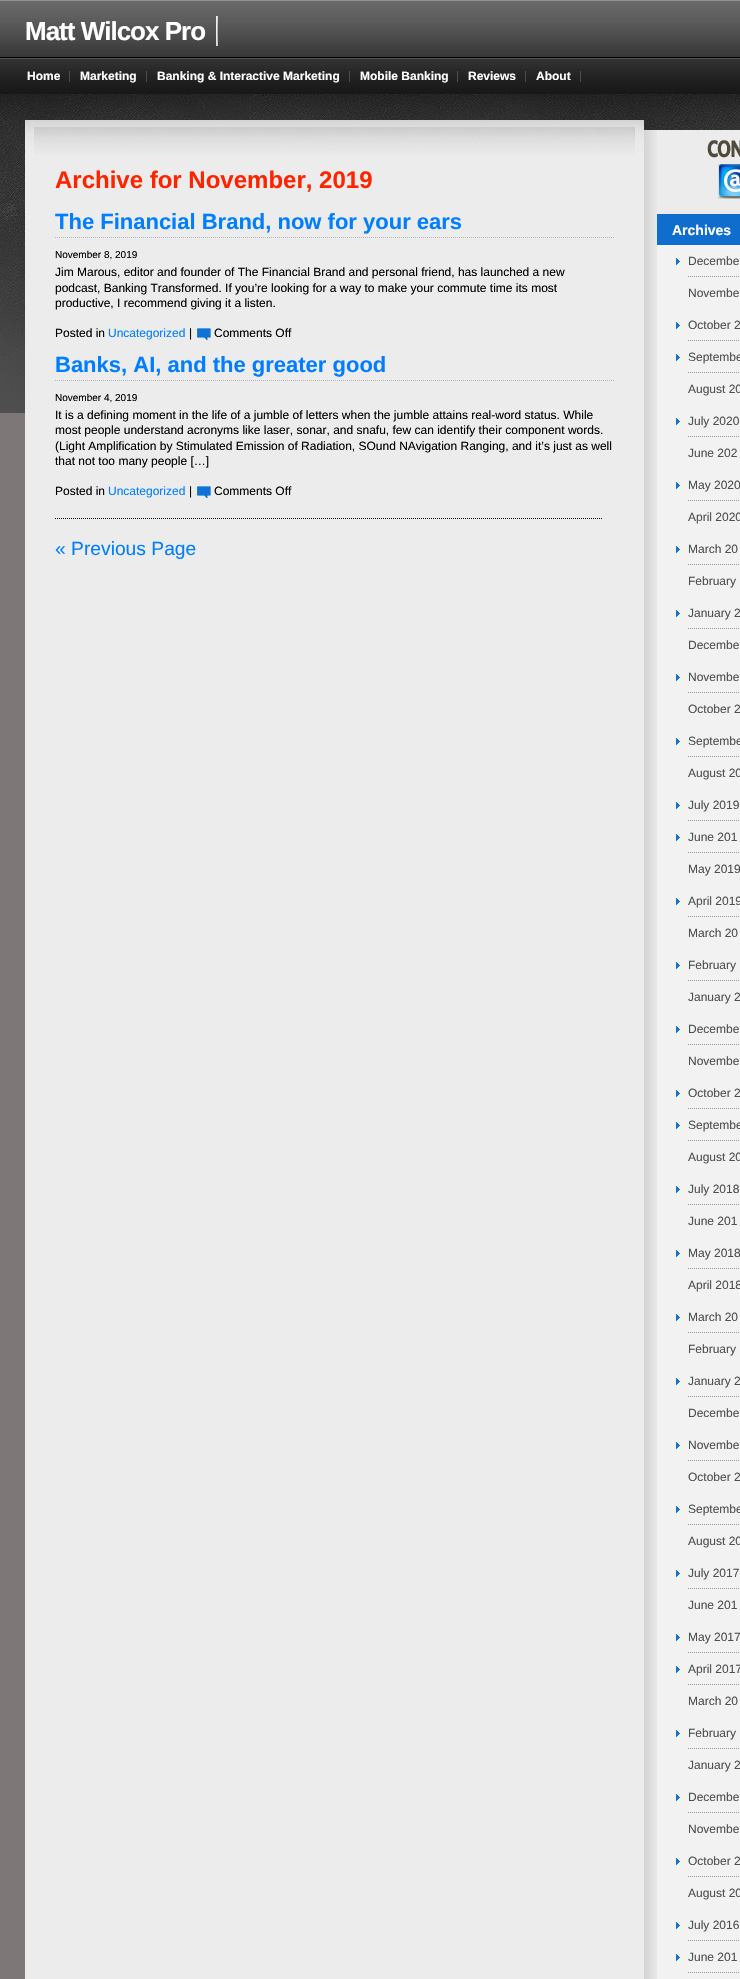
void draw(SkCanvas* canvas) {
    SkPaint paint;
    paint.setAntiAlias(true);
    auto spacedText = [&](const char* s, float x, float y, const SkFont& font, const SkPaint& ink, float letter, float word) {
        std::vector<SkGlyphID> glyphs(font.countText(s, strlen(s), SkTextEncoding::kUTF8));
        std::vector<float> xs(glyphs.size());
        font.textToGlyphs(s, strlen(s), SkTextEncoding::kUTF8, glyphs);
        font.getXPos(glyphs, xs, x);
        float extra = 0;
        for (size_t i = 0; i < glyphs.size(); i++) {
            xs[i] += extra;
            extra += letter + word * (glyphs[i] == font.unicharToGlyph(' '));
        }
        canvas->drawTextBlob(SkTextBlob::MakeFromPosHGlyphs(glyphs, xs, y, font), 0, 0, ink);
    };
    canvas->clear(0xFF7E7777);
    canvas->drawImageRect(SkImages::DeferredFromEncodedData(SkData::MakeFromFileName("img1.png")), SkRect::MakeXYWH(0, 0, 740, 90), SkSamplingOptions());
    canvas->drawImageRect(SkImages::DeferredFromEncodedData(SkData::MakeFromFileName("img2.png")), SkRect::MakeXYWH(0, 90, 740, 323), SkSamplingOptions());
    SkFont font1(fontMgr->matchFamilyStyle("Liberation Sans", SkFontStyle::Bold()), 26);
    font1.setSubpixel(true);
    paint.setColor(0xFFFFFFFF);
    spacedText("Matt Wilcox Pro", 25, 40, font1, paint, -1, 0);
    canvas->drawImageRect(SkImages::DeferredFromEncodedData(SkData::MakeFromFileName("img3.png")), SkRect::MakeXYWH(216, 16, 2, 30), SkSamplingOptions());
    paint.setColor(0xFF4D4B4B);
    canvas->drawRect(SkRect::MakeXYWH(69, 71, 1, 11), paint);
    SkFont font2(fontMgr->matchFamilyStyle("Liberation Sans", SkFontStyle::Bold()), 12);
    font2.setSubpixel(true);
    paint.setColor(0xFFFFFFFF);
    canvas->drawString("Home", 27, 80, font2, paint);
    paint.setColor(0xFF4D4B4B);
    canvas->drawRect(SkRect::MakeXYWH(146, 71, 1, 11), paint);
    paint.setColor(0xFFFFFFFF);
    canvas->drawString("Marketing", 80, 80, font2, paint);
    paint.setColor(0xFF4D4B4B);
    canvas->drawRect(SkRect::MakeXYWH(349, 71, 1, 11), paint);
    paint.setColor(0xFFFFFFFF);
    canvas->drawString("Banking & Interactive Marketing", 157, 80, font2, paint);
    paint.setColor(0xFF4D4B4B);
    canvas->drawRect(SkRect::MakeXYWH(457, 71, 1, 11), paint);
    paint.setColor(0xFFFFFFFF);
    canvas->drawString("Mobile Banking", 360, 80, font2, paint);
    paint.setColor(0xFF4D4B4B);
    canvas->drawRect(SkRect::MakeXYWH(525, 71, 1, 11), paint);
    paint.setColor(0xFFFFFFFF);
    canvas->drawString("Reviews", 468, 80, font2, paint);
    paint.setColor(0xFF4D4B4B);
    canvas->drawRect(SkRect::MakeXYWH(580, 71, 1, 11), paint);
    paint.setColor(0xFFFFFFFF);
    canvas->drawString("About", 536, 80, font2, paint);
    paint.setColor(0xFFEDECEC);
    canvas->drawRect(SkRect::MakeXYWH(25, 130, 715, 1849), paint);
    canvas->drawImageRect(SkImages::DeferredFromEncodedData(SkData::MakeFromFileName("img4.png")), SkRect::MakeXYWH(644, 130, 13, 1849), SkSamplingOptions());
    canvas->drawImageRect(SkImages::DeferredFromEncodedData(SkData::MakeFromFileName("img5.png")), SkRect::MakeXYWH(25, 120, 619, 35), SkSamplingOptions());
    SkFont font3(fontMgr->matchFamilyStyle("Liberation Sans", SkFontStyle::Bold()), 24);
    font3.setSubpixel(true);
    paint.setColor(0xFFFE2400);
    canvas->drawString("Archive for November, 2019", 55, 188, font3, paint);
    SkFont font4(fontMgr->matchFamilyStyle("Liberation Sans", SkFontStyle::Bold()), 22);
    font4.setSubpixel(true);
    paint.setColor(0xFF007EFF);
    canvas->drawString("The Financial Brand, now for your ears", 55, 229, font4, paint);
    canvas->drawImageRect(SkImages::DeferredFromEncodedData(SkData::MakeFromFileName("img6.png")), SkRect::MakeXYWH(55, 237, 559, 1), SkSamplingOptions());
    SkFont font5(fontMgr->matchFamilyStyle("Liberation Sans", SkFontStyle::Normal()), 10);
    font5.setSubpixel(true);
    paint.setColor(0xFF000000);
    canvas->drawString("November 8, 2019", 55, 258, font5, paint);
    SkFont font6(fontMgr->matchFamilyStyle("Liberation Sans", SkFontStyle::Normal()), 12);
    font6.setSubpixel(true);
    canvas->drawString("Jim Marous, editor and founder of The Financial Brand and personal friend, has launched a new", 55, 276, font6, paint);
    canvas->drawString("podcast, Banking Transformed. If you’re looking for a way to make your commute time its most", 55, 292, font6, paint);
    canvas->drawString("productive, I recommend giving it a listen.", 55, 307, font6, paint);
    canvas->drawString("Posted in", 55, 337, font6, paint);
    paint.setColor(0xFF007EFF);
    canvas->drawString("Uncategorized", 108, 337, font6, paint);
    paint.setColor(0xFF000000);
    canvas->drawString("|", 189, 337, font6, paint);
    canvas->drawImageRect(SkImages::DeferredFromEncodedData(SkData::MakeFromFileName("img7.png")), SkRect::MakeXYWH(197, 328, 14, 12), SkSamplingOptions());
    canvas->drawString("Comments Off", 214, 337, font6, paint);
    paint.setColor(0xFF007EFF);
    canvas->drawString("Banks, AI, and the greater good", 55, 372, font4, paint);
    canvas->drawImageRect(SkImages::DeferredFromEncodedData(SkData::MakeFromFileName("img6.png")), SkRect::MakeXYWH(55, 380, 559, 1), SkSamplingOptions());
    paint.setColor(0xFF000000);
    canvas->drawString("November 4, 2019", 55, 401, font5, paint);
    canvas->drawString("It is a defining moment in the life of a jumble of letters when the jumble attains real-word status. While", 55, 419, font6, paint);
    canvas->drawString("most people understand acronyms like laser, sonar, and snafu, few can identify their component words.", 55, 434, font6, paint);
    canvas->drawString("(Light Amplification by Stimulated Emission of Radiation, SOund NAvigation Ranging, and it’s just as well", 55, 450, font6, paint);
    canvas->drawString("that not too many people […]", 55, 465, font6, paint);
    canvas->drawString("Posted in", 55, 495, font6, paint);
    paint.setColor(0xFF007EFF);
    canvas->drawString("Uncategorized", 108, 495, font6, paint);
    paint.setColor(0xFF000000);
    canvas->drawString("|", 189, 495, font6, paint);
    canvas->drawImageRect(SkImages::DeferredFromEncodedData(SkData::MakeFromFileName("img7.png")), SkRect::MakeXYWH(197, 486, 14, 12), SkSamplingOptions());
    canvas->drawString("Comments Off", 214, 495, font6, paint);
    paint.setStyle(SkPaint::kStroke_Style);
    paint.setStrokeWidth(1);
    paint.setColor(0xFF020202);
    paint.setPathEffect(SkDashPathEffect::Make({{1, 1}}, 0));
    canvas->drawPath(SkPathBuilder().moveTo(55, 518.5f).lineTo(602, 518.5f).detach(), paint);
    paint.setPathEffect(nullptr);
    SkFont font7(fontMgr->matchFamilyStyle("Liberation Sans", SkFontStyle::Normal()), 19.25f);
    font7.setSubpixel(true);
    paint.setStyle(SkPaint::kFill_Style);
    paint.setColor(0xFF007EFF);
    canvas->drawString("« Previous Page", 55, 555, font7, paint);
    canvas->drawImageRect(SkImages::DeferredFromEncodedData(SkData::MakeFromFileName("img8.png")), SkRect::MakeXYWH(644, 120, 96, 10), SkSamplingOptions());
    canvas->drawImageRect(SkImages::DeferredFromEncodedData(SkData::MakeFromFileName("img9.png")), SkRect::MakeXYWH(707, 140, 33, 18), SkSamplingOptions());
    canvas->drawImageRect(SkImages::DeferredFromEncodedData(SkData::MakeFromFileName("img10.png")), SkRect::MakeXYWH(718, 164, 22, 35), SkSamplingOptions());
    paint.setColor(0xFFF2F2F2);
    canvas->drawRect(SkRect::MakeXYWH(657, 245, 83, 1734), paint);
    paint.setColor(0xFF0F6DCD);
    canvas->drawRect(SkRect::MakeXYWH(657, 214, 83, 31), paint);
    SkFont font8(fontMgr->matchFamilyStyle("Liberation Sans", SkFontStyle::Bold()), 14);
    font8.setSubpixel(true);
    paint.setColor(0xFFFFFFFF);
    canvas->drawString("Archives", 672, 235, font8, paint);
    canvas->drawImageRect(SkImages::DeferredFromEncodedData(SkData::MakeFromFileName("img11.png")), SkRect::MakeXYWH(688, 276, 52, 1), SkSamplingOptions());
    canvas->drawImageRect(SkImages::DeferredFromEncodedData(SkData::MakeFromFileName("img12.png")), SkRect::MakeXYWH(676, 258, 4, 7), SkSamplingOptions());
    paint.setColor(0xFF4F4F4F);
    canvas->drawString("Decembe", 688, 265, font6, paint);
    canvas->drawString("Novembe", 688, 297, font6, paint);
    canvas->drawImageRect(SkImages::DeferredFromEncodedData(SkData::MakeFromFileName("img11.png")), SkRect::MakeXYWH(688, 340, 52, 1), SkSamplingOptions());
    canvas->drawImageRect(SkImages::DeferredFromEncodedData(SkData::MakeFromFileName("img12.png")), SkRect::MakeXYWH(676, 322, 4, 7), SkSamplingOptions());
    canvas->drawString("October 2", 688, 329, font6, paint);
    canvas->drawImageRect(SkImages::DeferredFromEncodedData(SkData::MakeFromFileName("img11.png")), SkRect::MakeXYWH(688, 372, 52, 1), SkSamplingOptions());
    canvas->drawImageRect(SkImages::DeferredFromEncodedData(SkData::MakeFromFileName("img12.png")), SkRect::MakeXYWH(676, 354, 4, 7), SkSamplingOptions());
    canvas->drawString("Septembe", 688, 361, font6, paint);
    canvas->drawString("August 20", 688, 393, font6, paint);
    canvas->drawImageRect(SkImages::DeferredFromEncodedData(SkData::MakeFromFileName("img11.png")), SkRect::MakeXYWH(688, 436, 52, 1), SkSamplingOptions());
    canvas->drawImageRect(SkImages::DeferredFromEncodedData(SkData::MakeFromFileName("img12.png")), SkRect::MakeXYWH(676, 418, 4, 7), SkSamplingOptions());
    canvas->drawString("July 2020", 688, 425, font6, paint);
    canvas->drawString("June 202", 688, 457, font6, paint);
    canvas->drawImageRect(SkImages::DeferredFromEncodedData(SkData::MakeFromFileName("img11.png")), SkRect::MakeXYWH(688, 500, 52, 1), SkSamplingOptions());
    canvas->drawImageRect(SkImages::DeferredFromEncodedData(SkData::MakeFromFileName("img12.png")), SkRect::MakeXYWH(676, 482, 4, 7), SkSamplingOptions());
    canvas->drawString("May 2020", 688, 489, font6, paint);
    canvas->drawString("April 2020", 688, 521, font6, paint);
    canvas->drawImageRect(SkImages::DeferredFromEncodedData(SkData::MakeFromFileName("img11.png")), SkRect::MakeXYWH(688, 564, 52, 1), SkSamplingOptions());
    canvas->drawImageRect(SkImages::DeferredFromEncodedData(SkData::MakeFromFileName("img12.png")), SkRect::MakeXYWH(676, 546, 4, 7), SkSamplingOptions());
    canvas->drawString("March 20", 688, 553, font6, paint);
    canvas->drawString("February", 688, 585, font6, paint);
    canvas->drawImageRect(SkImages::DeferredFromEncodedData(SkData::MakeFromFileName("img11.png")), SkRect::MakeXYWH(688, 628, 52, 1), SkSamplingOptions());
    canvas->drawImageRect(SkImages::DeferredFromEncodedData(SkData::MakeFromFileName("img12.png")), SkRect::MakeXYWH(676, 610, 4, 7), SkSamplingOptions());
    canvas->drawString("January 2", 688, 617, font6, paint);
    canvas->drawString("Decembe", 688, 649, font6, paint);
    canvas->drawImageRect(SkImages::DeferredFromEncodedData(SkData::MakeFromFileName("img11.png")), SkRect::MakeXYWH(688, 692, 52, 1), SkSamplingOptions());
    canvas->drawImageRect(SkImages::DeferredFromEncodedData(SkData::MakeFromFileName("img12.png")), SkRect::MakeXYWH(676, 674, 4, 7), SkSamplingOptions());
    canvas->drawString("Novembe", 688, 681, font6, paint);
    canvas->drawString("October 2", 688, 713, font6, paint);
    canvas->drawImageRect(SkImages::DeferredFromEncodedData(SkData::MakeFromFileName("img11.png")), SkRect::MakeXYWH(688, 756, 52, 1), SkSamplingOptions());
    canvas->drawImageRect(SkImages::DeferredFromEncodedData(SkData::MakeFromFileName("img12.png")), SkRect::MakeXYWH(676, 738, 4, 7), SkSamplingOptions());
    canvas->drawString("Septembe", 688, 745, font6, paint);
    canvas->drawString("August 20", 688, 777, font6, paint);
    canvas->drawImageRect(SkImages::DeferredFromEncodedData(SkData::MakeFromFileName("img11.png")), SkRect::MakeXYWH(688, 820, 52, 1), SkSamplingOptions());
    canvas->drawImageRect(SkImages::DeferredFromEncodedData(SkData::MakeFromFileName("img12.png")), SkRect::MakeXYWH(676, 802, 4, 7), SkSamplingOptions());
    canvas->drawString("July 2019", 688, 809, font6, paint);
    canvas->drawImageRect(SkImages::DeferredFromEncodedData(SkData::MakeFromFileName("img11.png")), SkRect::MakeXYWH(688, 852, 52, 1), SkSamplingOptions());
    canvas->drawImageRect(SkImages::DeferredFromEncodedData(SkData::MakeFromFileName("img12.png")), SkRect::MakeXYWH(676, 834, 4, 7), SkSamplingOptions());
    canvas->drawString("June 201", 688, 841, font6, paint);
    canvas->drawString("May 2019", 688, 873, font6, paint);
    canvas->drawImageRect(SkImages::DeferredFromEncodedData(SkData::MakeFromFileName("img11.png")), SkRect::MakeXYWH(688, 916, 52, 1), SkSamplingOptions());
    canvas->drawImageRect(SkImages::DeferredFromEncodedData(SkData::MakeFromFileName("img12.png")), SkRect::MakeXYWH(676, 898, 4, 7), SkSamplingOptions());
    canvas->drawString("April 2019", 688, 905, font6, paint);
    canvas->drawString("March 20", 688, 937, font6, paint);
    canvas->drawImageRect(SkImages::DeferredFromEncodedData(SkData::MakeFromFileName("img11.png")), SkRect::MakeXYWH(688, 980, 52, 1), SkSamplingOptions());
    canvas->drawImageRect(SkImages::DeferredFromEncodedData(SkData::MakeFromFileName("img12.png")), SkRect::MakeXYWH(676, 962, 4, 7), SkSamplingOptions());
    canvas->drawString("February", 688, 969, font6, paint);
    canvas->drawString("January 2", 688, 1001, font6, paint);
    canvas->drawImageRect(SkImages::DeferredFromEncodedData(SkData::MakeFromFileName("img11.png")), SkRect::MakeXYWH(688, 1044, 52, 1), SkSamplingOptions());
    canvas->drawImageRect(SkImages::DeferredFromEncodedData(SkData::MakeFromFileName("img12.png")), SkRect::MakeXYWH(676, 1026, 4, 7), SkSamplingOptions());
    canvas->drawString("Decembe", 688, 1033, font6, paint);
    canvas->drawString("Novembe", 688, 1065, font6, paint);
    canvas->drawImageRect(SkImages::DeferredFromEncodedData(SkData::MakeFromFileName("img11.png")), SkRect::MakeXYWH(688, 1108, 52, 1), SkSamplingOptions());
    canvas->drawImageRect(SkImages::DeferredFromEncodedData(SkData::MakeFromFileName("img12.png")), SkRect::MakeXYWH(676, 1090, 4, 7), SkSamplingOptions());
    canvas->drawString("October 2", 688, 1097, font6, paint);
    canvas->drawImageRect(SkImages::DeferredFromEncodedData(SkData::MakeFromFileName("img11.png")), SkRect::MakeXYWH(688, 1140, 52, 1), SkSamplingOptions());
    canvas->drawImageRect(SkImages::DeferredFromEncodedData(SkData::MakeFromFileName("img12.png")), SkRect::MakeXYWH(676, 1122, 4, 7), SkSamplingOptions());
    canvas->drawString("Septembe", 688, 1129, font6, paint);
    canvas->drawString("August 20", 688, 1161, font6, paint);
    canvas->drawImageRect(SkImages::DeferredFromEncodedData(SkData::MakeFromFileName("img11.png")), SkRect::MakeXYWH(688, 1204, 52, 1), SkSamplingOptions());
    canvas->drawImageRect(SkImages::DeferredFromEncodedData(SkData::MakeFromFileName("img12.png")), SkRect::MakeXYWH(676, 1186, 4, 7), SkSamplingOptions());
    canvas->drawString("July 2018", 688, 1193, font6, paint);
    canvas->drawString("June 201", 688, 1225, font6, paint);
    canvas->drawImageRect(SkImages::DeferredFromEncodedData(SkData::MakeFromFileName("img11.png")), SkRect::MakeXYWH(688, 1268, 52, 1), SkSamplingOptions());
    canvas->drawImageRect(SkImages::DeferredFromEncodedData(SkData::MakeFromFileName("img12.png")), SkRect::MakeXYWH(676, 1250, 4, 7), SkSamplingOptions());
    canvas->drawString("May 2018", 688, 1257, font6, paint);
    canvas->drawString("April 2018", 688, 1289, font6, paint);
    canvas->drawImageRect(SkImages::DeferredFromEncodedData(SkData::MakeFromFileName("img11.png")), SkRect::MakeXYWH(688, 1332, 52, 1), SkSamplingOptions());
    canvas->drawImageRect(SkImages::DeferredFromEncodedData(SkData::MakeFromFileName("img12.png")), SkRect::MakeXYWH(676, 1314, 4, 7), SkSamplingOptions());
    canvas->drawString("March 20", 688, 1321, font6, paint);
    canvas->drawString("February", 688, 1353, font6, paint);
    canvas->drawImageRect(SkImages::DeferredFromEncodedData(SkData::MakeFromFileName("img11.png")), SkRect::MakeXYWH(688, 1396, 52, 1), SkSamplingOptions());
    canvas->drawImageRect(SkImages::DeferredFromEncodedData(SkData::MakeFromFileName("img12.png")), SkRect::MakeXYWH(676, 1378, 4, 7), SkSamplingOptions());
    canvas->drawString("January 2", 688, 1385, font6, paint);
    canvas->drawString("Decembe", 688, 1417, font6, paint);
    canvas->drawImageRect(SkImages::DeferredFromEncodedData(SkData::MakeFromFileName("img11.png")), SkRect::MakeXYWH(688, 1460, 52, 1), SkSamplingOptions());
    canvas->drawImageRect(SkImages::DeferredFromEncodedData(SkData::MakeFromFileName("img12.png")), SkRect::MakeXYWH(676, 1442, 4, 7), SkSamplingOptions());
    canvas->drawString("Novembe", 688, 1449, font6, paint);
    canvas->drawString("October 2", 688, 1481, font6, paint);
    canvas->drawImageRect(SkImages::DeferredFromEncodedData(SkData::MakeFromFileName("img11.png")), SkRect::MakeXYWH(688, 1524, 52, 1), SkSamplingOptions());
    canvas->drawImageRect(SkImages::DeferredFromEncodedData(SkData::MakeFromFileName("img12.png")), SkRect::MakeXYWH(676, 1506, 4, 7), SkSamplingOptions());
    canvas->drawString("Septembe", 688, 1513, font6, paint);
    canvas->drawString("August 20", 688, 1545, font6, paint);
    canvas->drawImageRect(SkImages::DeferredFromEncodedData(SkData::MakeFromFileName("img11.png")), SkRect::MakeXYWH(688, 1588, 52, 1), SkSamplingOptions());
    canvas->drawImageRect(SkImages::DeferredFromEncodedData(SkData::MakeFromFileName("img12.png")), SkRect::MakeXYWH(676, 1570, 4, 7), SkSamplingOptions());
    canvas->drawString("July 2017", 688, 1577, font6, paint);
    canvas->drawString("June 201", 688, 1609, font6, paint);
    canvas->drawImageRect(SkImages::DeferredFromEncodedData(SkData::MakeFromFileName("img11.png")), SkRect::MakeXYWH(688, 1652, 52, 1), SkSamplingOptions());
    canvas->drawImageRect(SkImages::DeferredFromEncodedData(SkData::MakeFromFileName("img12.png")), SkRect::MakeXYWH(676, 1634, 4, 7), SkSamplingOptions());
    canvas->drawString("May 2017", 688, 1641, font6, paint);
    canvas->drawImageRect(SkImages::DeferredFromEncodedData(SkData::MakeFromFileName("img11.png")), SkRect::MakeXYWH(688, 1684, 52, 1), SkSamplingOptions());
    canvas->drawImageRect(SkImages::DeferredFromEncodedData(SkData::MakeFromFileName("img12.png")), SkRect::MakeXYWH(676, 1666, 4, 7), SkSamplingOptions());
    canvas->drawString("April 2017", 688, 1673, font6, paint);
    canvas->drawString("March 20", 688, 1705, font6, paint);
    canvas->drawImageRect(SkImages::DeferredFromEncodedData(SkData::MakeFromFileName("img11.png")), SkRect::MakeXYWH(688, 1748, 52, 1), SkSamplingOptions());
    canvas->drawImageRect(SkImages::DeferredFromEncodedData(SkData::MakeFromFileName("img12.png")), SkRect::MakeXYWH(676, 1730, 4, 7), SkSamplingOptions());
    canvas->drawString("February", 688, 1737, font6, paint);
    canvas->drawString("January 2", 688, 1769, font6, paint);
    canvas->drawImageRect(SkImages::DeferredFromEncodedData(SkData::MakeFromFileName("img11.png")), SkRect::MakeXYWH(688, 1812, 52, 1), SkSamplingOptions());
    canvas->drawImageRect(SkImages::DeferredFromEncodedData(SkData::MakeFromFileName("img12.png")), SkRect::MakeXYWH(676, 1794, 4, 7), SkSamplingOptions());
    canvas->drawString("Decembe", 688, 1801, font6, paint);
    canvas->drawString("Novembe", 688, 1833, font6, paint);
    canvas->drawImageRect(SkImages::DeferredFromEncodedData(SkData::MakeFromFileName("img11.png")), SkRect::MakeXYWH(688, 1876, 52, 1), SkSamplingOptions());
    canvas->drawImageRect(SkImages::DeferredFromEncodedData(SkData::MakeFromFileName("img12.png")), SkRect::MakeXYWH(676, 1858, 4, 7), SkSamplingOptions());
    canvas->drawString("October 2", 688, 1865, font6, paint);
    canvas->drawString("August 20", 688, 1897, font6, paint);
    canvas->drawImageRect(SkImages::DeferredFromEncodedData(SkData::MakeFromFileName("img11.png")), SkRect::MakeXYWH(688, 1940, 52, 1), SkSamplingOptions());
    canvas->drawImageRect(SkImages::DeferredFromEncodedData(SkData::MakeFromFileName("img12.png")), SkRect::MakeXYWH(676, 1922, 4, 7), SkSamplingOptions());
    canvas->drawString("July 2016", 688, 1929, font6, paint);
    canvas->drawImageRect(SkImages::DeferredFromEncodedData(SkData::MakeFromFileName("img11.png")), SkRect::MakeXYWH(688, 1972, 52, 1), SkSamplingOptions());
    canvas->drawImageRect(SkImages::DeferredFromEncodedData(SkData::MakeFromFileName("img12.png")), SkRect::MakeXYWH(676, 1954, 4, 7), SkSamplingOptions());
    canvas->drawString("June 201", 688, 1961, font6, paint);
}
